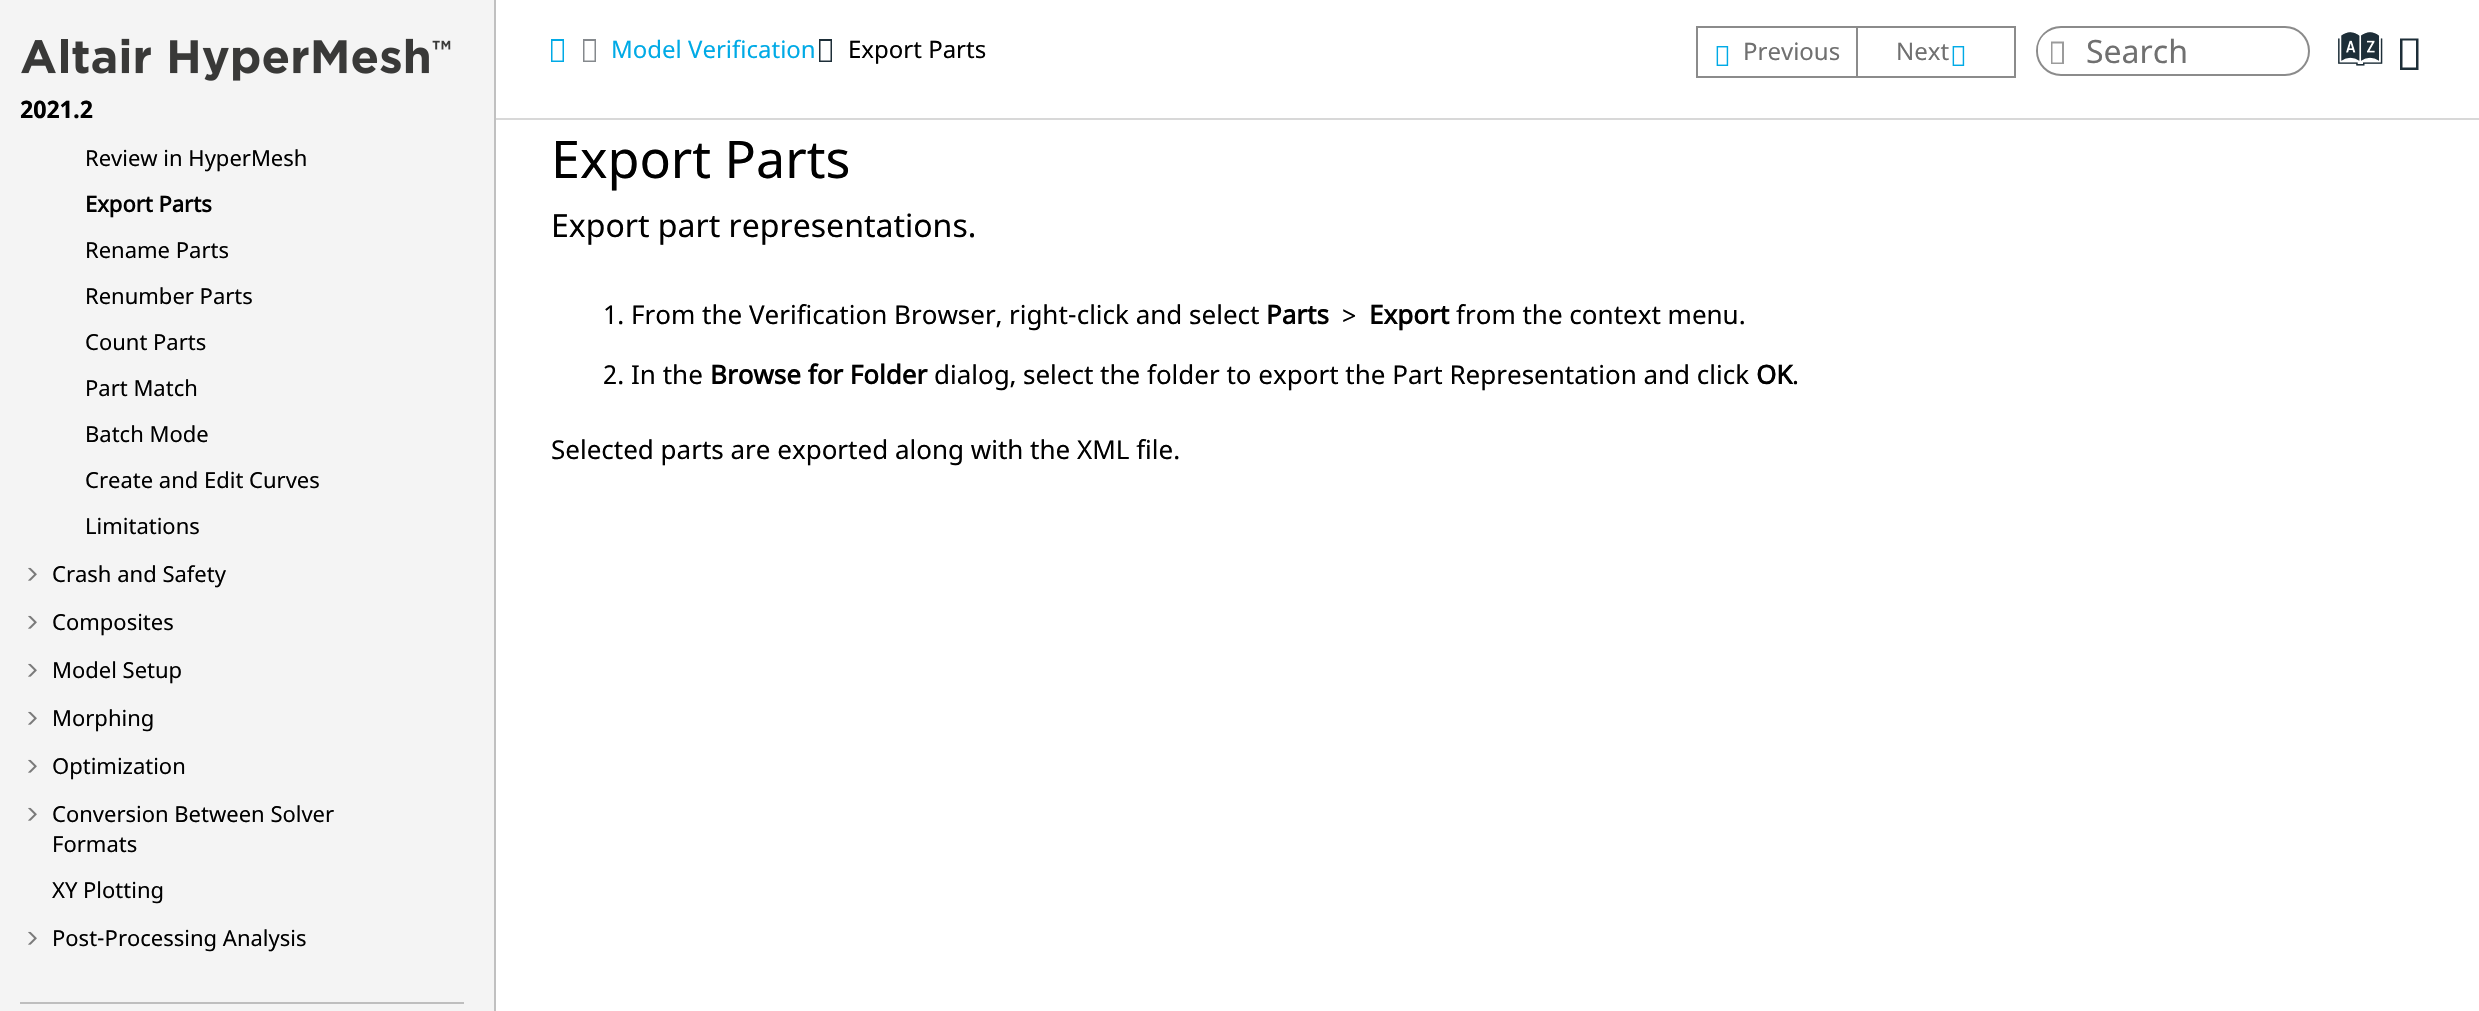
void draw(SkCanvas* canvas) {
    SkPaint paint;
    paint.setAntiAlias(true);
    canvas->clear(0xFFFFFFFF);
    paint.setColor(0xFFF4F4F4);
    canvas->drawRect(SkRect::MakeXYWH(0, 0, 494, 1011), paint);
    paint.setColor(0xFFC0C0C0);
    canvas->drawRect(SkRect::MakeXYWH(494, 0, 2, 1011), paint);
    canvas->drawImageRect(SkImages::DeferredFromEncodedData(SkData::MakeFromFileName("img1.png")), SkRect::MakeXYWH(21, 38, 430, 43), SkSamplingOptions());
    SkFont font1(fontMgr->matchFamilyStyle("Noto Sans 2", SkFontStyle::Bold()), 24);
    font1.setSubpixel(true);
    paint.setColor(0xFF000000);
    canvas->drawString("2021.2", 20, 118, font1, paint);
    SkFont font2(fontMgr->matchFamilyStyle("Noto Sans", SkFontStyle::Normal()), 22);
    font2.setSubpixel(true);
    canvas->drawString("Review in HyperMesh", 85, 166, font2, paint);
    SkFont font3(fontMgr->matchFamilyStyle("Noto Sans", SkFontStyle::Bold()), 22);
    font3.setSubpixel(true);
    canvas->drawString("Export Parts", 85, 212, font3, paint);
    canvas->drawString("Rename Parts", 85, 258, font2, paint);
    canvas->drawString("Renumber Parts", 85, 304, font2, paint);
    canvas->drawString("Count Parts", 85, 350, font2, paint);
    canvas->drawString("Part Match", 85, 396, font2, paint);
    canvas->drawString("Batch Mode", 85, 442, font2, paint);
    canvas->drawString("Create and Edit Curves", 85, 488, font2, paint);
    canvas->drawString("Limitations", 85, 534, font2, paint);
    canvas->drawImageRect(SkImages::DeferredFromEncodedData(SkData::MakeFromFileName("img2.png")), SkRect::MakeXYWH(28, 567, 9, 14), SkSamplingOptions());
    canvas->drawString("Crash and Safety", 52, 582, font2, paint);
    canvas->drawImageRect(SkImages::DeferredFromEncodedData(SkData::MakeFromFileName("img2.png")), SkRect::MakeXYWH(28, 615, 9, 14), SkSamplingOptions());
    canvas->drawString("Composites", 52, 630, font2, paint);
    canvas->drawImageRect(SkImages::DeferredFromEncodedData(SkData::MakeFromFileName("img2.png")), SkRect::MakeXYWH(28, 663, 9, 14), SkSamplingOptions());
    canvas->drawString("Model Setup", 52, 678, font2, paint);
    canvas->drawImageRect(SkImages::DeferredFromEncodedData(SkData::MakeFromFileName("img2.png")), SkRect::MakeXYWH(28, 711, 9, 14), SkSamplingOptions());
    canvas->drawString("Morphing", 52, 726, font2, paint);
    canvas->drawImageRect(SkImages::DeferredFromEncodedData(SkData::MakeFromFileName("img2.png")), SkRect::MakeXYWH(28, 759, 9, 14), SkSamplingOptions());
    canvas->drawString("Optimization", 52, 774, font2, paint);
    canvas->drawImageRect(SkImages::DeferredFromEncodedData(SkData::MakeFromFileName("img2.png")), SkRect::MakeXYWH(28, 807, 9, 14), SkSamplingOptions());
    canvas->drawString("Conversion Between Solver", 52, 822, font2, paint);
    canvas->drawString("Formats", 52, 852, font2, paint);
    canvas->drawString("XY Plotting", 52, 898, font2, paint);
    canvas->drawImageRect(SkImages::DeferredFromEncodedData(SkData::MakeFromFileName("img2.png")), SkRect::MakeXYWH(28, 931, 9, 14), SkSamplingOptions());
    canvas->drawString("Post-Processing Analysis", 52, 946, font2, paint);
    paint.setColor(0xFFBEBEBE);
    canvas->drawRect(SkRect::MakeXYWH(20, 1002, 444, 2), paint);
    paint.setColor(0xFFD8D8D8);
    canvas->drawRect(SkRect::MakeXYWH(496, 118, 1983, 2), paint);
    paint.setColor(0xFF00AAE6);
    canvas->drawPath(SkPathBuilder().moveTo(551, 62).lineTo(551, 39).lineTo(564, 39).lineTo(564, 62).close().moveTo(552.5f, 60.5f).lineTo(562.5f, 60.5f).lineTo(562.5f, 41).lineTo(552.5f, 41).close().detach(), paint);
    paint.setColor(0xFF85898D);
    canvas->drawPath(SkPathBuilder().moveTo(583, 62).lineTo(583, 39).lineTo(596, 39).lineTo(596, 62).close().moveTo(584.5f, 60.5f).lineTo(594.5f, 60.5f).lineTo(594.5f, 41).lineTo(584.5f, 41).close().detach(), paint);
    SkFont font4(fontMgr->matchFamilyStyle("Noto Sans", SkFontStyle::Normal()), 24);
    font4.setSubpixel(true);
    paint.setColor(0xFF00AAE6);
    canvas->drawString("Model Verification", 611, 58, font4, paint);
    paint.setColor(0xFF1D2E38);
    canvas->drawPath(SkPathBuilder().moveTo(819, 62).lineTo(819, 39).lineTo(832, 39).lineTo(832, 62).close().moveTo(820.5f, 60.5f).lineTo(830.5f, 60.5f).lineTo(830.5f, 41).lineTo(820.5f, 41).close().detach(), paint);
    paint.setColor(0xFF000000);
    canvas->drawString("Export Parts", 848, 58, font4, paint);
    paint.setColor(0xFF8B8B8B);
    canvas->drawRect(SkRect::MakeXYWH(1696, 26, 160, 2), paint);
    canvas->drawRect(SkRect::MakeXYWH(1696, 76, 160, 2), paint);
    canvas->drawRect(SkRect::MakeXYWH(1696, 26, 2, 52), paint);
    canvas->drawImageRect(SkImages::DeferredFromEncodedData(SkData::MakeFromFileName("img3.png")), SkRect::MakeXYWH(1716, 46, 13, 20), SkSamplingOptions());
    paint.setColor(0xFF707070);
    canvas->drawString("Previous", 1743, 60, font4, paint);
    paint.setStyle(SkPaint::kStroke_Style);
    paint.setStrokeWidth(2);
    paint.setColor(0xFF8B8B8B);
    canvas->drawRect(SkRect::MakeXYWH(1857, 27, 158, 50), paint);
    paint.setStyle(SkPaint::kFill_Style);
    paint.setColor(0xFF707070);
    canvas->drawString("Next", 1896, 60, font4, paint);
    canvas->drawImageRect(SkImages::DeferredFromEncodedData(SkData::MakeFromFileName("img3.png")), SkRect::MakeXYWH(1952, 46, 13, 20), SkSamplingOptions());
    paint.setStyle(SkPaint::kStroke_Style);
    paint.setColor(0xFF8B8B8B);
    canvas->drawRoundRect(SkRect::MakeXYWH(2037, 27, 272, 48), 24, 24, paint);
    paint.setStyle(SkPaint::kFill_Style);
    paint.setColor(0xFFFFFFFF);
    canvas->drawRoundRect(SkRect::MakeXYWH(2038, 30, 40, 38), 19, 19, paint);
    paint.setColor(0xFF9B9B9B);
    canvas->drawPath(SkPathBuilder().moveTo(2051, 64).lineTo(2051, 41.5f).lineTo(2064, 41.5f).lineTo(2064, 64).close().moveTo(2052.5f, 62.5f).lineTo(2062, 62.5f).lineTo(2062, 43.5f).lineTo(2052.5f, 43.5f).close().detach(), paint);
    SkFont font5(fontMgr->matchFamilyStyle("Noto Sans", SkFontStyle::Normal()), 32);
    font5.setSubpixel(true);
    paint.setColor(0xFF707070);
    canvas->drawString("Search", 2086, 63, font5, paint);
    SkFont font6(fontMgr->matchFamilyStyle("Oxygen", SkFontStyle::Normal()), 47);
    font6.setSubpixel(true);
    paint.setColor(0xFF1D2E38);
    canvas->drawString("a", 2343, 71, font6, paint);
    canvas->drawPath(SkPathBuilder().moveTo(2400, 70).lineTo(2400, 38.5f).lineTo(2418.5f, 38.5f).lineTo(2418.5f, 70).close().moveTo(2402.5f, 67.5f).lineTo(2416, 67.5f).lineTo(2416, 40.5f).lineTo(2402.5f, 40.5f).close().detach(), paint);
    SkFont font7(fontMgr->matchFamilyStyle("Noto Sans", SkFontStyle::Normal()), 52);
    font7.setSubpixel(true);
    paint.setColor(0xFF000000);
    canvas->drawString("Export Parts", 551, 178, font7, paint);
    canvas->drawString("Export part representations.", 551, 237, font5, paint);
    SkFont font8(fontMgr->matchFamilyStyle("Noto Sans", SkFontStyle::Normal()), 26);
    font8.setSubpixel(true);
    canvas->drawString("1. From the Verification Browser, right-click and select", 603, 324, font8, paint);
    SkFont font9(fontMgr->matchFamilyStyle("Noto Sans", SkFontStyle::Bold()), 26);
    font9.setSubpixel(true);
    canvas->drawString("Parts", 1266, 324, font9, paint);
    canvas->drawString(">", 1342, 324, font8, paint);
    canvas->drawString("Export", 1369, 324, font9, paint);
    canvas->drawString("from the context menu.", 1456, 324, font8, paint);
    canvas->drawString("2. In the", 603, 384, font8, paint);
    canvas->drawString("Browse for Folder", 710, 384, font9, paint);
    canvas->drawString("dialog, select the folder to export the Part Representation and click", 934, 384, font8, paint);
    canvas->drawString("OK", 1756, 384, font9, paint);
    canvas->drawString(".", 1792, 384, font8, paint);
    canvas->drawString("Selected parts are exported along with the XML file.", 551, 459, font8, paint);
}
